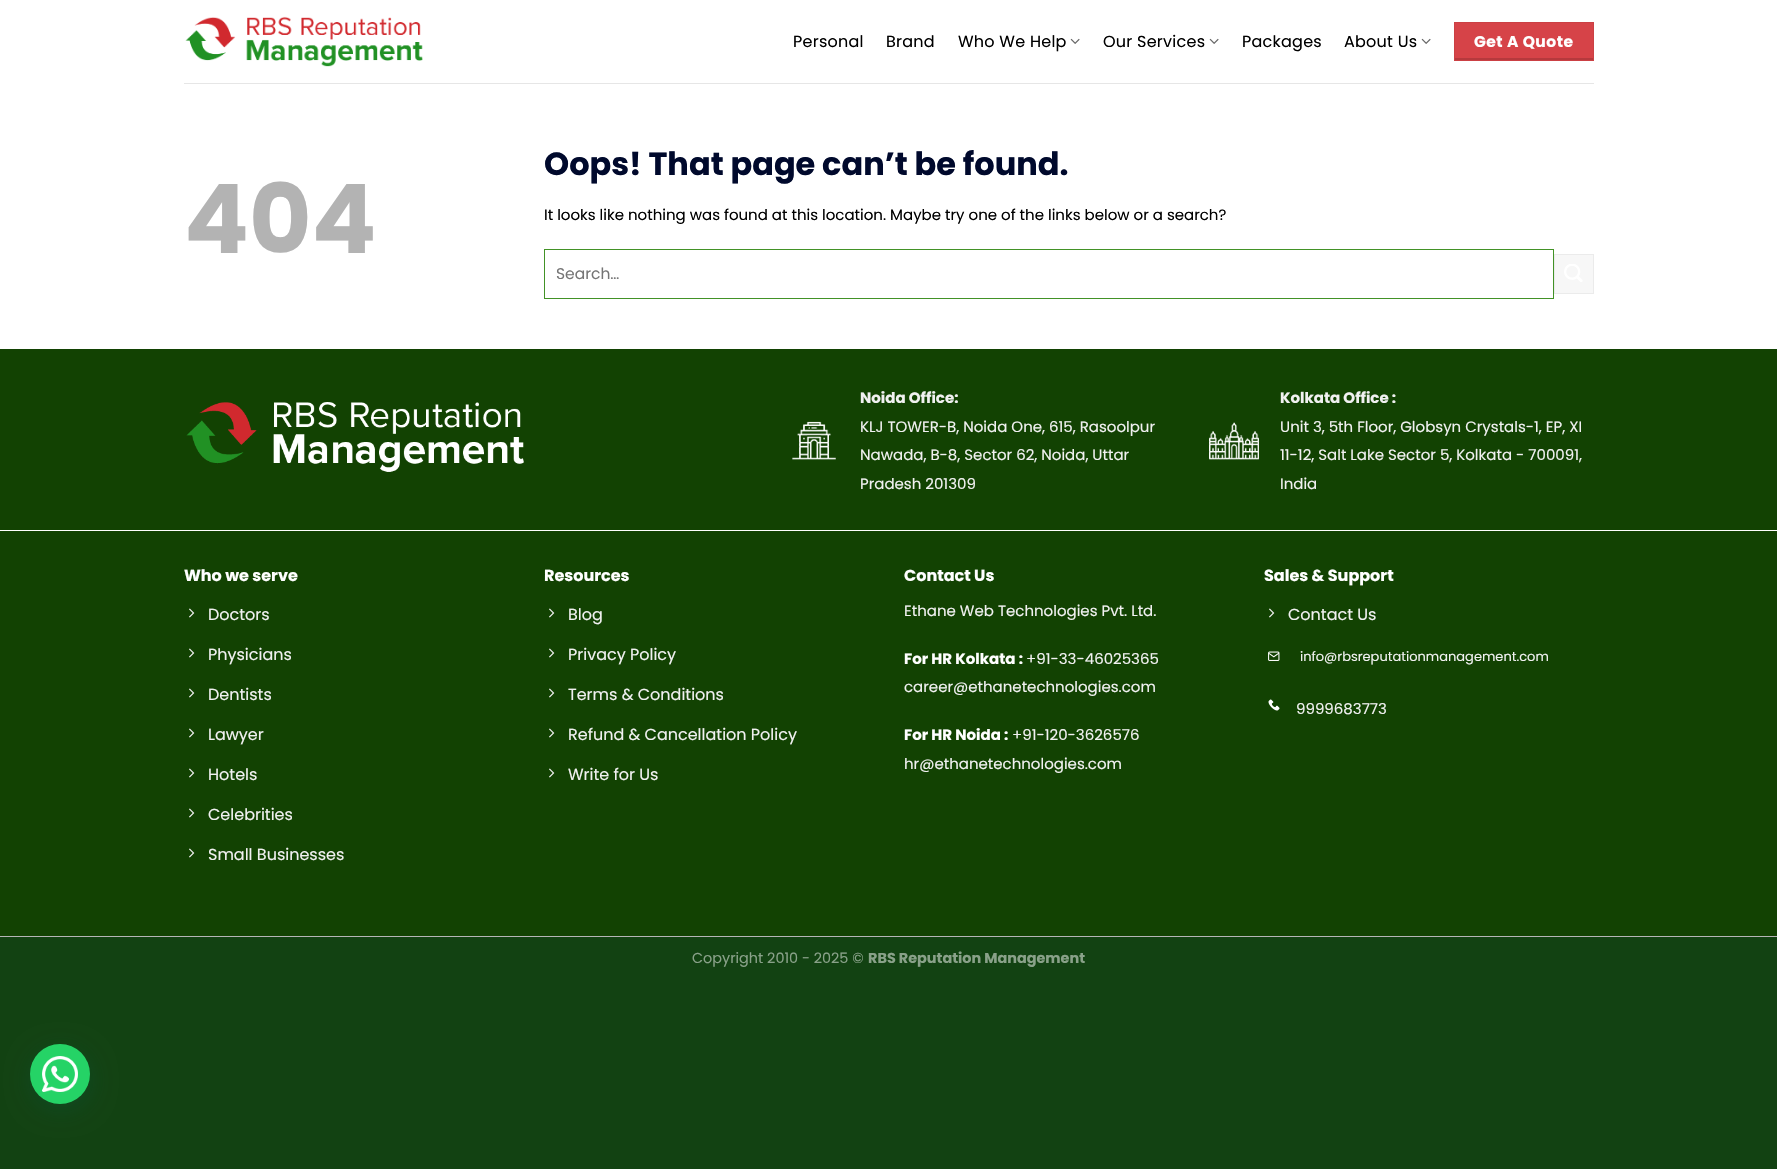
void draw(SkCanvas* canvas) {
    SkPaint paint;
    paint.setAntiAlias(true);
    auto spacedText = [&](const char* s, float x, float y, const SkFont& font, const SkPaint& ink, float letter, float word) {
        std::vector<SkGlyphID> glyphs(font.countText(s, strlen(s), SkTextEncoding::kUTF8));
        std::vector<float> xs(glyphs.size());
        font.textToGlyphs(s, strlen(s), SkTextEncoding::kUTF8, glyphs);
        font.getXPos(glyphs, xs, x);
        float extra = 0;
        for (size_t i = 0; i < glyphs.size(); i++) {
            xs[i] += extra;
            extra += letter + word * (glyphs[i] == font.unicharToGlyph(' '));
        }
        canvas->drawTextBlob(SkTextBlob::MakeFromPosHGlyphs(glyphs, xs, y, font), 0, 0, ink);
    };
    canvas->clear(0xFF124212);
    paint.setColor(0xFFFFFFFF);
    canvas->drawRect(SkRect::MakeXYWH(0, 0, 1777, 349), paint);
    canvas->drawImageRect(SkImages::DeferredFromEncodedData(SkData::MakeFromFileName("img1.png")), SkRect::MakeXYWH(185, 16, 238, 51), SkSamplingOptions());
    SkFont font1(fontMgr->matchFamilyStyle("Poppins", SkFontStyle::Normal()), 16);
    font1.setSubpixel(true);
    paint.setColor(0xFF000000);
    spacedText("Personal", 793, 47, font1, paint, 0.25f, 0);
    spacedText("Brand", 886, 47, font1, paint, 0.25f, 0);
    spacedText("Who We Help", 958, 47, font1, paint, 0.25f, 0);
    canvas->drawImageRect(SkImages::DeferredFromEncodedData(SkData::MakeFromFileName("img2.png")), SkRect::MakeXYWH(1070, 38, 10, 6), SkSamplingOptions());
    spacedText("Our Services", 1103, 47, font1, paint, 0.25f, 0);
    canvas->drawImageRect(SkImages::DeferredFromEncodedData(SkData::MakeFromFileName("img2.png")), SkRect::MakeXYWH(1209, 38, 10, 6), SkSamplingOptions());
    spacedText("Packages", 1242, 47, font1, paint, 0.25f, 0);
    spacedText("About Us", 1344, 47, font1, paint, 0.25f, 0);
    canvas->drawImageRect(SkImages::DeferredFromEncodedData(SkData::MakeFromFileName("img2.png")), SkRect::MakeXYWH(1421, 38, 10, 6), SkSamplingOptions());
    paint.setColor(0xFFD64348);
    canvas->drawRect(SkRect::MakeXYWH(1455, 23, 138, 35), paint);
    paint.setStyle(SkPaint::kStroke_Style);
    paint.setStrokeWidth(1);
    paint.setColor(0xFFCB4044);
    canvas->drawRect(SkRect::MakeXYWH(1454.5f, 22.5f, 139, 38), paint);
    SkFont font2(fontMgr->matchFamilyStyle("Poppins", SkFontStyle::Bold()), 15.5f);
    font2.setSubpixel(true);
    paint.setStyle(SkPaint::kFill_Style);
    paint.setColor(0xFFFFFFFF);
    spacedText("Get A Quote", 1474, 47, font2, paint, 0.5f, 0);
    canvas->save();
    canvas->clipRect(SkRect::MakeXYWH(1455, 23, 138, 37));
    paint.setColor(0xFFB6393D);
    canvas->drawPath(SkPathBuilder(SkPathFillType::kEvenOdd).moveTo(1356, -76).lineTo(1692, -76).lineTo(1692, 159).lineTo(1356, 159).close().moveTo(1455, 21).lineTo(1593, 21).lineTo(1593, 58).lineTo(1455, 58).close().detach(), paint);
    canvas->restore();
    paint.setColor(0xFFE6E6E6);
    canvas->drawRect(SkRect::MakeXYWH(184, 83, 1410, 1), paint);
    SkFont font3(fontMgr->matchFamilyStyle("Poppins", SkFontStyle::Bold()), 96);
    font3.setSubpixel(true);
    paint.setColor(0xFFB3B3B3);
    canvas->drawString("404", 184, 253, font3, paint);
    SkFont font4(fontMgr->matchFamilyStyle("Poppins", SkFontStyle::Bold()), 32);
    font4.setSubpixel(true);
    paint.setColor(0xFF00092C);
    canvas->drawString("Oops! That page can’t be found.", 544, 175, font4, paint);
    SkFont font5(fontMgr->matchFamilyStyle("Poppins", SkFontStyle::Normal()), 15);
    font5.setSubpixel(true);
    paint.setColor(0xFF000000);
    canvas->drawString("It looks like nothing was found at this location. Maybe try one of the links below or a search?", 544, 220, font5, paint);
    paint.setStyle(SkPaint::kStroke_Style);
    paint.setColor(0xFF429226);
    canvas->drawRect(SkRect::MakeXYWH(544.5f, 249.5f, 1009, 49), paint);
    SkFont font6(fontMgr->matchFamilyStyle("Poppins", SkFontStyle::Normal()), 15.5f);
    font6.setSubpixel(true);
    paint.setStyle(SkPaint::kFill_Style);
    paint.setColor(0xFF757575);
    canvas->drawString("Search…", 556, 279, font6, paint);
    paint.setColor(0xFFF7F7F7);
    canvas->drawRect(SkRect::MakeXYWH(1554.5f, 254.5f, 39, 39), paint);
    paint.setStyle(SkPaint::kStroke_Style);
    paint.setColor(0xFFEBEBEB);
    canvas->drawRect(SkRect::MakeXYWH(1554.5f, 254.5f, 39, 39), paint);
    canvas->drawImageRect(SkImages::DeferredFromEncodedData(SkData::MakeFromFileName("img3.png")), SkRect::MakeXYWH(1564, 264, 19, 18), SkSamplingOptions());
    paint.setStyle(SkPaint::kFill_Style);
    paint.setColor(0xFF124202);
    canvas->drawRect(SkRect::MakeXYWH(0, 349, 1777, 587), paint);
    canvas->drawImageRect(SkImages::DeferredFromEncodedData(SkData::MakeFromFileName("img4.png")), SkRect::MakeXYWH(186, 402, 338, 70), SkSamplingOptions());
    canvas->drawImageRect(SkImages::DeferredFromEncodedData(SkData::MakeFromFileName("img5.png")), SkRect::MakeXYWH(792, 421, 44, 39), SkSamplingOptions());
    SkFont font7(fontMgr->matchFamilyStyle("Poppins", SkFontStyle::Bold()), 15);
    font7.setSubpixel(true);
    paint.setColor(0xFFF1F1F1);
    canvas->drawString("Noida Office:", 860, 403, font7, paint);
    canvas->drawString("KLJ TOWER-B, Noida One, 615, Rasoolpur", 860, 432, font5, paint);
    canvas->drawString("Nawada, B-8, Sector 62, Noida, Uttar", 860, 460, font5, paint);
    canvas->drawString("Pradesh 201309", 860, 489, font5, paint);
    canvas->drawImageRect(SkImages::DeferredFromEncodedData(SkData::MakeFromFileName("img6.png")), SkRect::MakeXYWH(1209, 422, 50, 38), SkSamplingOptions());
    canvas->drawString("Kolkata Office :", 1280, 403, font7, paint);
    canvas->drawString("Unit 3, 5th Floor, Globsyn Crystals-1, EP, XI", 1280, 432, font5, paint);
    canvas->drawString("11-12, Salt Lake Sector 5, Kolkata - 700091,", 1280, 460, font5, paint);
    canvas->drawString("India", 1280, 489, font5, paint);
    paint.setColor(0xFFFFFFFF);
    canvas->drawRect(SkRect::MakeXYWH(0, 530, 1777, 1), paint);
    SkFont font8(fontMgr->matchFamilyStyle("Poppins", SkFontStyle::Bold()), 16);
    font8.setSubpixel(true);
    canvas->drawString("Who we serve", 184, 581, font8, paint);
    canvas->drawImageRect(SkImages::DeferredFromEncodedData(SkData::MakeFromFileName("img7.png")), SkRect::MakeXYWH(189, 608, 6, 10), SkSamplingOptions());
    paint.setColor(0xFFF1F1F1);
    canvas->drawString("Doctors", 208, 620, font1, paint);
    canvas->drawImageRect(SkImages::DeferredFromEncodedData(SkData::MakeFromFileName("img7.png")), SkRect::MakeXYWH(189, 648, 6, 10), SkSamplingOptions());
    canvas->drawString("Physicians", 208, 660, font1, paint);
    canvas->drawImageRect(SkImages::DeferredFromEncodedData(SkData::MakeFromFileName("img7.png")), SkRect::MakeXYWH(189, 688, 6, 10), SkSamplingOptions());
    canvas->drawString("Dentists", 208, 700, font1, paint);
    canvas->drawImageRect(SkImages::DeferredFromEncodedData(SkData::MakeFromFileName("img7.png")), SkRect::MakeXYWH(189, 728, 6, 10), SkSamplingOptions());
    canvas->drawString("Lawyer", 208, 740, font1, paint);
    canvas->drawImageRect(SkImages::DeferredFromEncodedData(SkData::MakeFromFileName("img7.png")), SkRect::MakeXYWH(189, 768, 6, 10), SkSamplingOptions());
    canvas->drawString("Hotels", 208, 780, font1, paint);
    canvas->drawImageRect(SkImages::DeferredFromEncodedData(SkData::MakeFromFileName("img7.png")), SkRect::MakeXYWH(189, 808, 6, 10), SkSamplingOptions());
    canvas->drawString("Celebrities", 208, 820, font1, paint);
    canvas->drawImageRect(SkImages::DeferredFromEncodedData(SkData::MakeFromFileName("img7.png")), SkRect::MakeXYWH(189, 848, 6, 10), SkSamplingOptions());
    canvas->drawString("Small Businesses", 208, 860, font1, paint);
    paint.setColor(0xFFFFFFFF);
    canvas->drawString("Resources", 544, 581, font8, paint);
    canvas->drawImageRect(SkImages::DeferredFromEncodedData(SkData::MakeFromFileName("img7.png")), SkRect::MakeXYWH(549, 608, 6, 10), SkSamplingOptions());
    paint.setColor(0xFFF1F1F1);
    canvas->drawString("Blog", 568, 620, font1, paint);
    canvas->drawImageRect(SkImages::DeferredFromEncodedData(SkData::MakeFromFileName("img7.png")), SkRect::MakeXYWH(549, 648, 6, 10), SkSamplingOptions());
    canvas->drawString("Privacy Policy", 568, 660, font1, paint);
    canvas->drawImageRect(SkImages::DeferredFromEncodedData(SkData::MakeFromFileName("img7.png")), SkRect::MakeXYWH(549, 688, 6, 10), SkSamplingOptions());
    canvas->drawString("Terms & Conditions", 568, 700, font1, paint);
    canvas->drawImageRect(SkImages::DeferredFromEncodedData(SkData::MakeFromFileName("img7.png")), SkRect::MakeXYWH(549, 728, 6, 10), SkSamplingOptions());
    canvas->drawString("Refund & Cancellation Policy", 568, 740, font1, paint);
    canvas->drawImageRect(SkImages::DeferredFromEncodedData(SkData::MakeFromFileName("img7.png")), SkRect::MakeXYWH(549, 768, 6, 10), SkSamplingOptions());
    canvas->drawString("Write for Us", 568, 780, font1, paint);
    paint.setColor(0xFFFFFFFF);
    canvas->drawString("Contact Us", 904, 581, font8, paint);
    paint.setColor(0xFFF1F1F1);
    canvas->drawString("Ethane Web Technologies Pvt. Ltd.", 904, 616, font5, paint);
    paint.setColor(0xFFFFFFFF);
    canvas->drawString("For HR Kolkata :", 904, 664, font7, paint);
    paint.setColor(0xFFF1F1F1);
    canvas->drawString("+91-33-46025365", 1026, 664, font5, paint);
    canvas->drawString("career@ethanetechnologies.com", 904, 692, font5, paint);
    paint.setColor(0xFFFFFFFF);
    canvas->drawString("For HR Noida :", 904, 740, font7, paint);
    paint.setColor(0xFFF1F1F1);
    canvas->drawString("+91-120-3626576", 1012, 740, font5, paint);
    canvas->drawString("hr@ethanetechnologies.com", 904, 769, font5, paint);
    paint.setColor(0xFFFFFFFF);
    canvas->drawString("Sales & Support", 1264, 581, font8, paint);
    canvas->drawImageRect(SkImages::DeferredFromEncodedData(SkData::MakeFromFileName("img7.png")), SkRect::MakeXYWH(1269, 608, 6, 10), SkSamplingOptions());
    paint.setColor(0xFFF1F1F1);
    canvas->drawString("Contact Us", 1288, 620, font1, paint);
    canvas->drawImageRect(SkImages::DeferredFromEncodedData(SkData::MakeFromFileName("img8.png")), SkRect::MakeXYWH(1268, 651, 12, 10), SkSamplingOptions());
    SkFont font9(fontMgr->matchFamilyStyle("Poppins", SkFontStyle::Normal()), 13);
    font9.setSubpixel(true);
    canvas->drawString("info@rbsreputationmanagement.com", 1300, 661, font9, paint);
    canvas->drawImageRect(SkImages::DeferredFromEncodedData(SkData::MakeFromFileName("img9.png")), SkRect::MakeXYWH(1268, 699, 12, 12), SkSamplingOptions());
    canvas->drawString("9999683773", 1296, 714, font5, paint);
    paint.setColor(0xFFB5B5B5);
    canvas->drawRect(SkRect::MakeXYWH(0, 936, 1777, 1), paint);
    SkFont font10(fontMgr->matchFamilyStyle("Poppins", SkFontStyle::Normal()), 14.4f);
    font10.setSubpixel(true);
    paint.setColor(0xFF89A189);
    canvas->drawString("Copyright 2010 - 2025 ©", 692, 963, font10, paint);
    SkFont font11(fontMgr->matchFamilyStyle("Poppins", SkFontStyle::Bold()), 14.4f);
    font11.setSubpixel(true);
    canvas->drawString("RBS Reputation Management", 868, 963, font11, paint);
    paint.setColor(0x3D075E54);
    paint.setMaskFilter(SkMaskFilter::MakeBlur(kNormal_SkBlurStyle, 12));
    canvas->drawRoundRect(SkRect::MakeXYWH(31, 1050, 60, 60), 30, 30, paint);
    paint.setMaskFilter(nullptr);
    paint.setColor(0xFF25D366);
    canvas->drawCircle(60, 1074, 30, paint);
    canvas->drawImageRect(SkImages::DeferredFromEncodedData(SkData::MakeFromFileName("img10.png")), SkRect::MakeXYWH(42, 1056, 36, 36), SkSamplingOptions());
}
